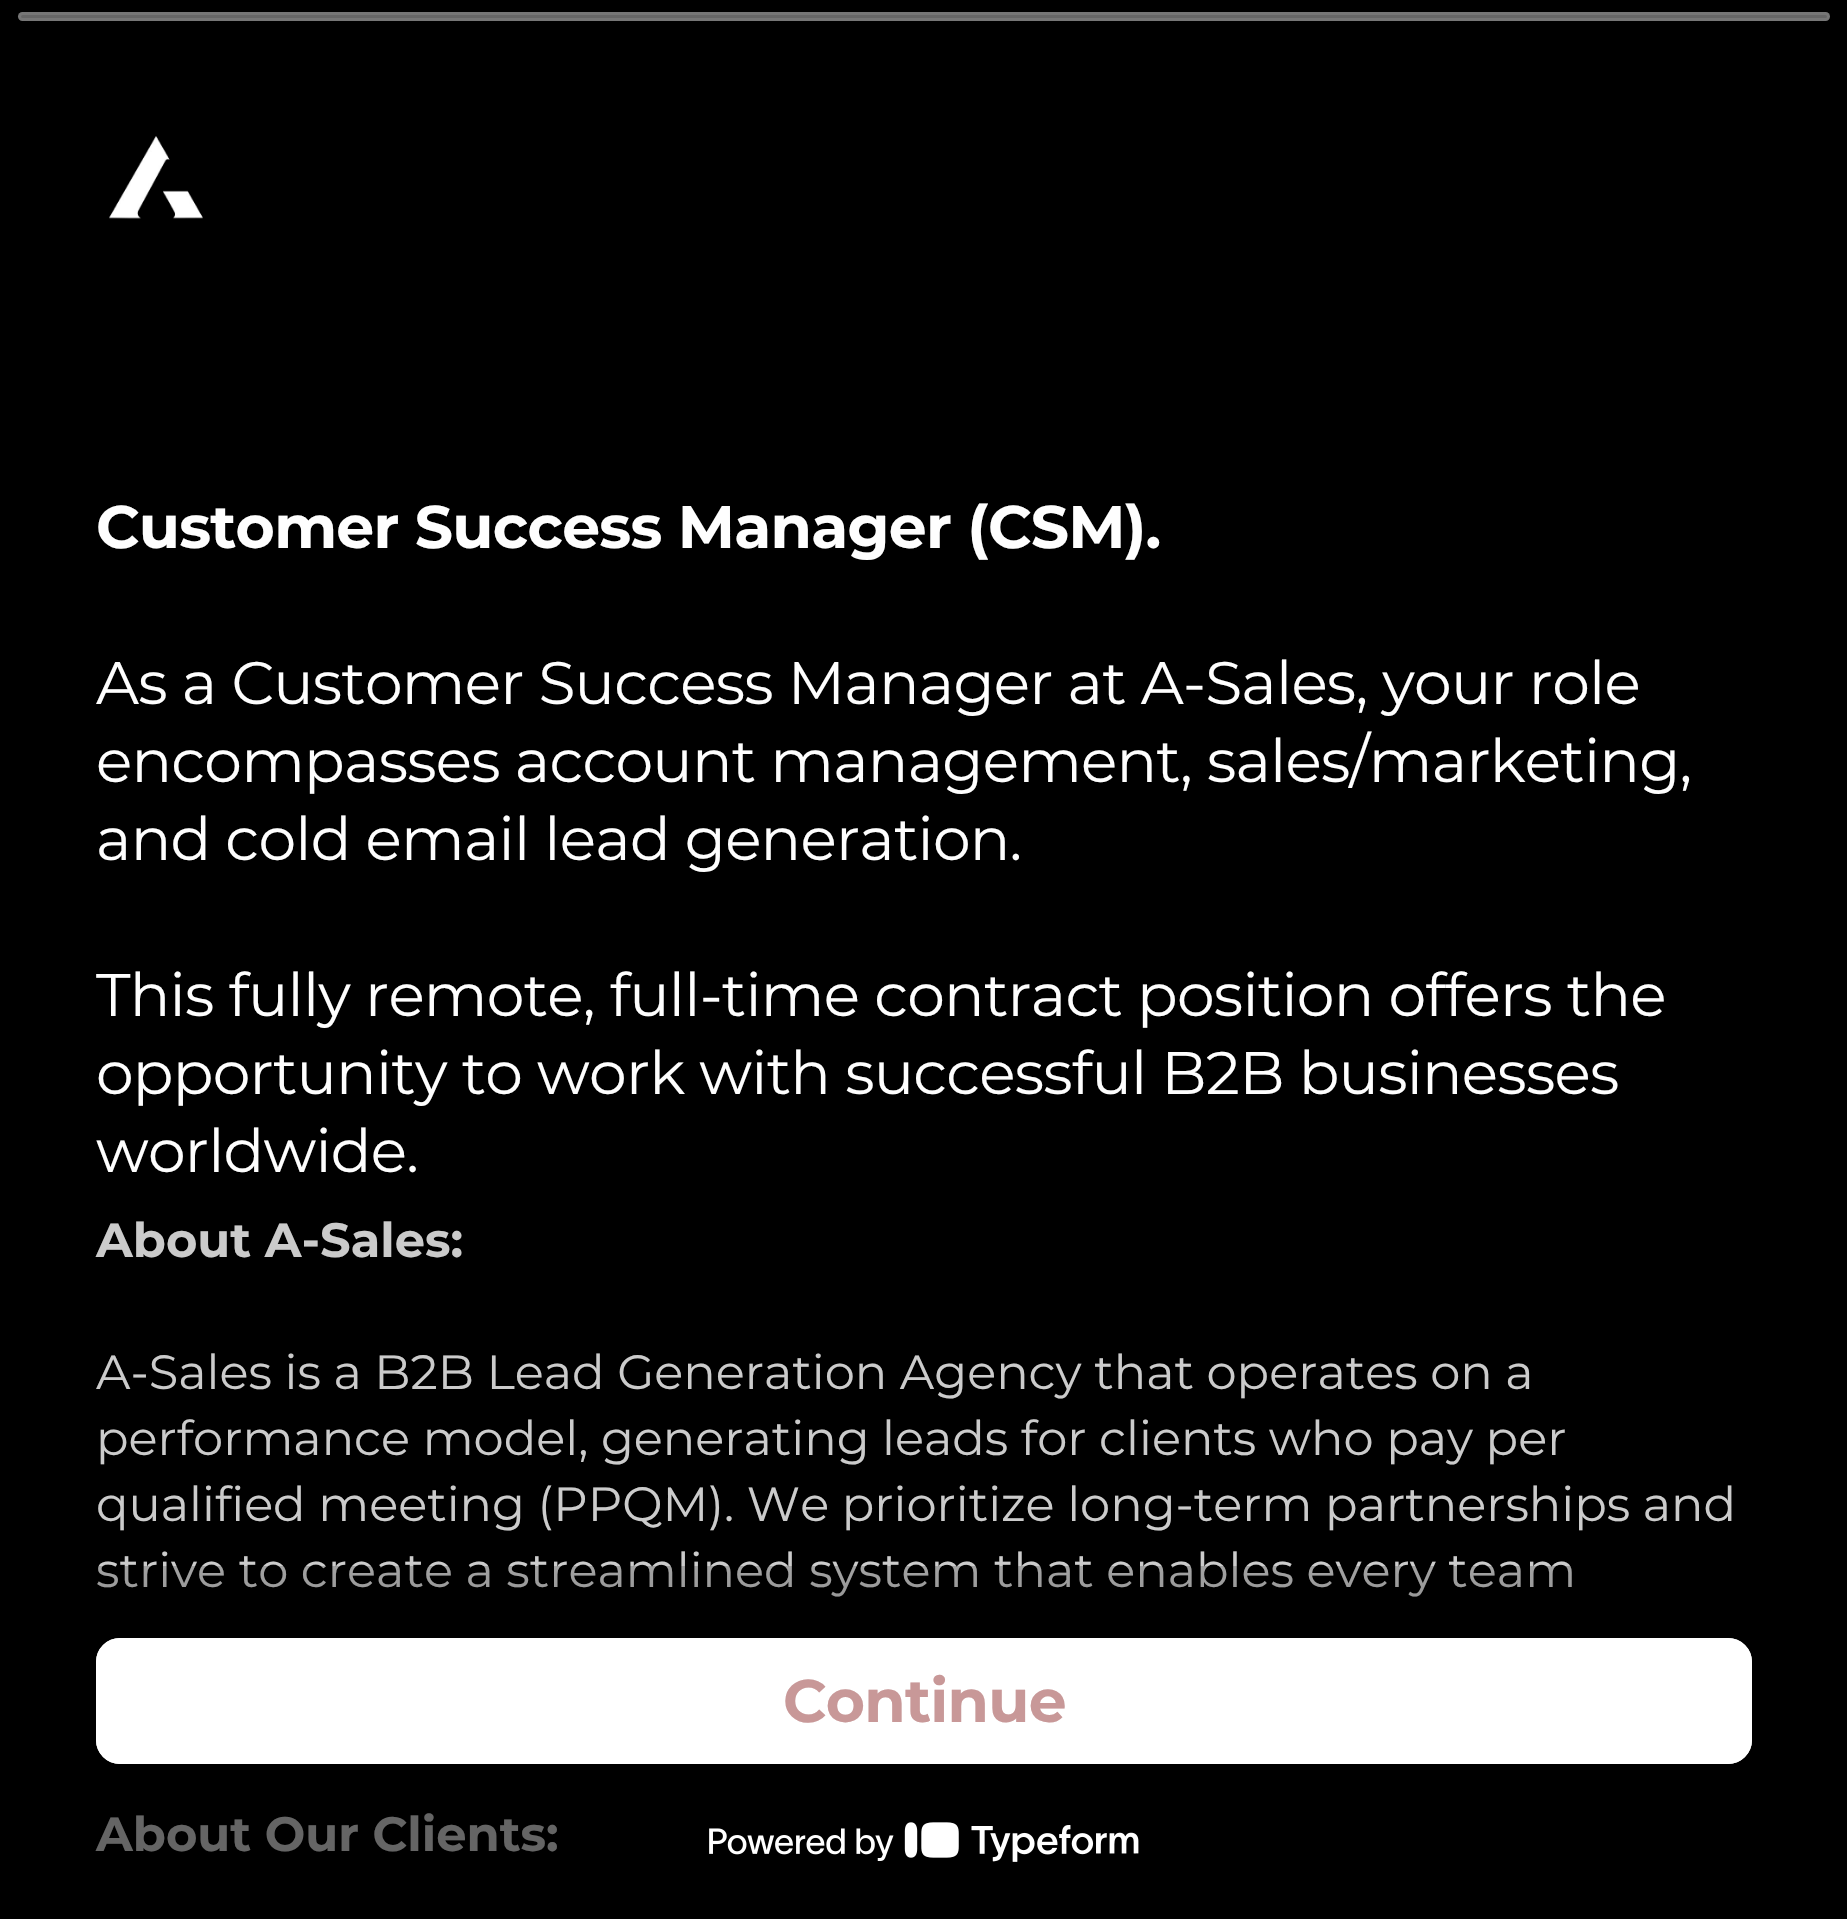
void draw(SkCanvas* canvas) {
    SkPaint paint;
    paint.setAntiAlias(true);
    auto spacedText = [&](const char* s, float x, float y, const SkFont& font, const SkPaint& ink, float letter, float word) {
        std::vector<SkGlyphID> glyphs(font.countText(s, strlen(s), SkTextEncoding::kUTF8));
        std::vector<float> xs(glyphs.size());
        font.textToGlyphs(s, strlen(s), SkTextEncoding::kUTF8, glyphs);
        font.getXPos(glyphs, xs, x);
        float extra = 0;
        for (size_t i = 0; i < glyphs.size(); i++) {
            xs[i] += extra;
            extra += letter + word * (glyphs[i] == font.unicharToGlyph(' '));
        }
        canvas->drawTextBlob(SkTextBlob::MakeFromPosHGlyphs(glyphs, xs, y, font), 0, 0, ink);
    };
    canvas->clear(0xFF000000);
    paint.setColor(0xFF666666);
    canvas->drawRoundRect(SkRect::MakeXYWH(18, 12, 1812, 9), 4.5f, 4.5f, paint);
    paint.setStyle(SkPaint::kStroke_Style);
    paint.setStrokeWidth(3);
    paint.setColor(0x1AFFFFFF);
    canvas->drawRoundRect(SkRect::MakeXYWH(19.5f, 13.5f, 1809, 6), 3, 3, paint);
    canvas->drawImageRect(SkImages::DeferredFromEncodedData(SkData::MakeFromFileName("img1.png")), SkRect::MakeXYWH(109, 136, 94, 83), SkSamplingOptions());
    SkFont font1(fontMgr->matchFamilyStyle("Montserrat", SkFontStyle(100, SkFontStyle::kNormal_Width, SkFontStyle::kUpright_Slant)), 60);
    font1.setSubpixel(true);
    paint.setStyle(SkPaint::kFill_Style);
    paint.setColor(0xFFFEFEFE);
    spacedText("Customer Success Manager (CSM).", 96, 548, font1, paint, -0.75f, 0);
    SkFont font2(fontMgr->matchFamilyStyle("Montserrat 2", SkFontStyle(100, SkFontStyle::kNormal_Width, SkFontStyle::kUpright_Slant)), 60);
    font2.setSubpixel(true);
    spacedText("As a Customer Success Manager at A-Sales, your role", 96, 704, font2, paint, -0.75f, 0);
    spacedText("encompasses account management, sales/marketing,", 96, 782, font2, paint, -0.75f, 0);
    spacedText("and cold email lead generation.", 96, 860, font2, paint, -0.75f, 0);
    spacedText("This fully remote, full-time contract position offers the", 96, 1016, font2, paint, -0.75f, 0);
    spacedText("opportunity to work with successful B2B businesses", 96, 1094, font2, paint, -0.75f, 0);
    spacedText("worldwide.", 96, 1172, font2, paint, -0.75f, 0);
    SkFont font3(fontMgr->matchFamilyStyle("Montserrat", SkFontStyle(100, SkFontStyle::kNormal_Width, SkFontStyle::kUpright_Slant)), 48);
    font3.setSubpixel(true);
    paint.setColor(0xFFCBCBCB);
    canvas->drawString("About A-Sales:", 96, 1257, font3, paint);
    SkFont font4(fontMgr->matchFamilyStyle("Montserrat 2", SkFontStyle(100, SkFontStyle::kNormal_Width, SkFontStyle::kUpright_Slant)), 48);
    font4.setSubpixel(true);
    canvas->drawString("A-Sales is a B2B Lead Generation Agency that operates on a", 96, 1389, font4, paint);
    canvas->drawString("performance model, generating leads for clients who pay per", 96, 1455, font4, paint);
    canvas->drawString("qualified meeting (PPQM). We prioritize long-term partnerships and", 96, 1521, font4, paint);
    canvas->drawString("strive to create a streamlined system that enables every team", 96, 1587, font4, paint);
    canvas->drawString("About Our Clients:", 96, 1851, font3, paint);
    {
        const SkColor colors[] = {0x80000000, 0x80000000, 0x33000000};
        const float stops[] = {0, 0.6f, 1};
        const SkPoint ends[] = {{924, 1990}, {924, 1566}};
        paint.setShader(SkGradientShader::MakeLinear(ends, colors, stops, 3, SkTileMode::kClamp));
        paint.setAlpha(255);
    }
    canvas->drawRect(SkRect::MakeXYWH(95, 1566, 1477, 286), paint);
    paint.setStyle(SkPaint::kStroke_Style);
    paint.setShader(nullptr);
    paint.setColor(0xFFFFFFFF);
    canvas->drawRoundRect(SkRect::MakeXYWH(97.5f, 1639.5f, 1653, 123), 22.5f, 22.5f, paint);
    paint.setStyle(SkPaint::kFill_Style);
    canvas->drawRoundRect(SkRect::MakeXYWH(96, 1638, 1656, 126), 24, 24, paint);
    paint.setColor(0xFFC89898);
    spacedText("Continue", 783, 1722, font1, paint, -0.75f, 0);
    canvas->drawImageRect(SkImages::DeferredFromEncodedData(SkData::MakeFromFileName("img2.png")), SkRect::MakeXYWH(709, 1822, 430, 40), SkSamplingOptions());
}
